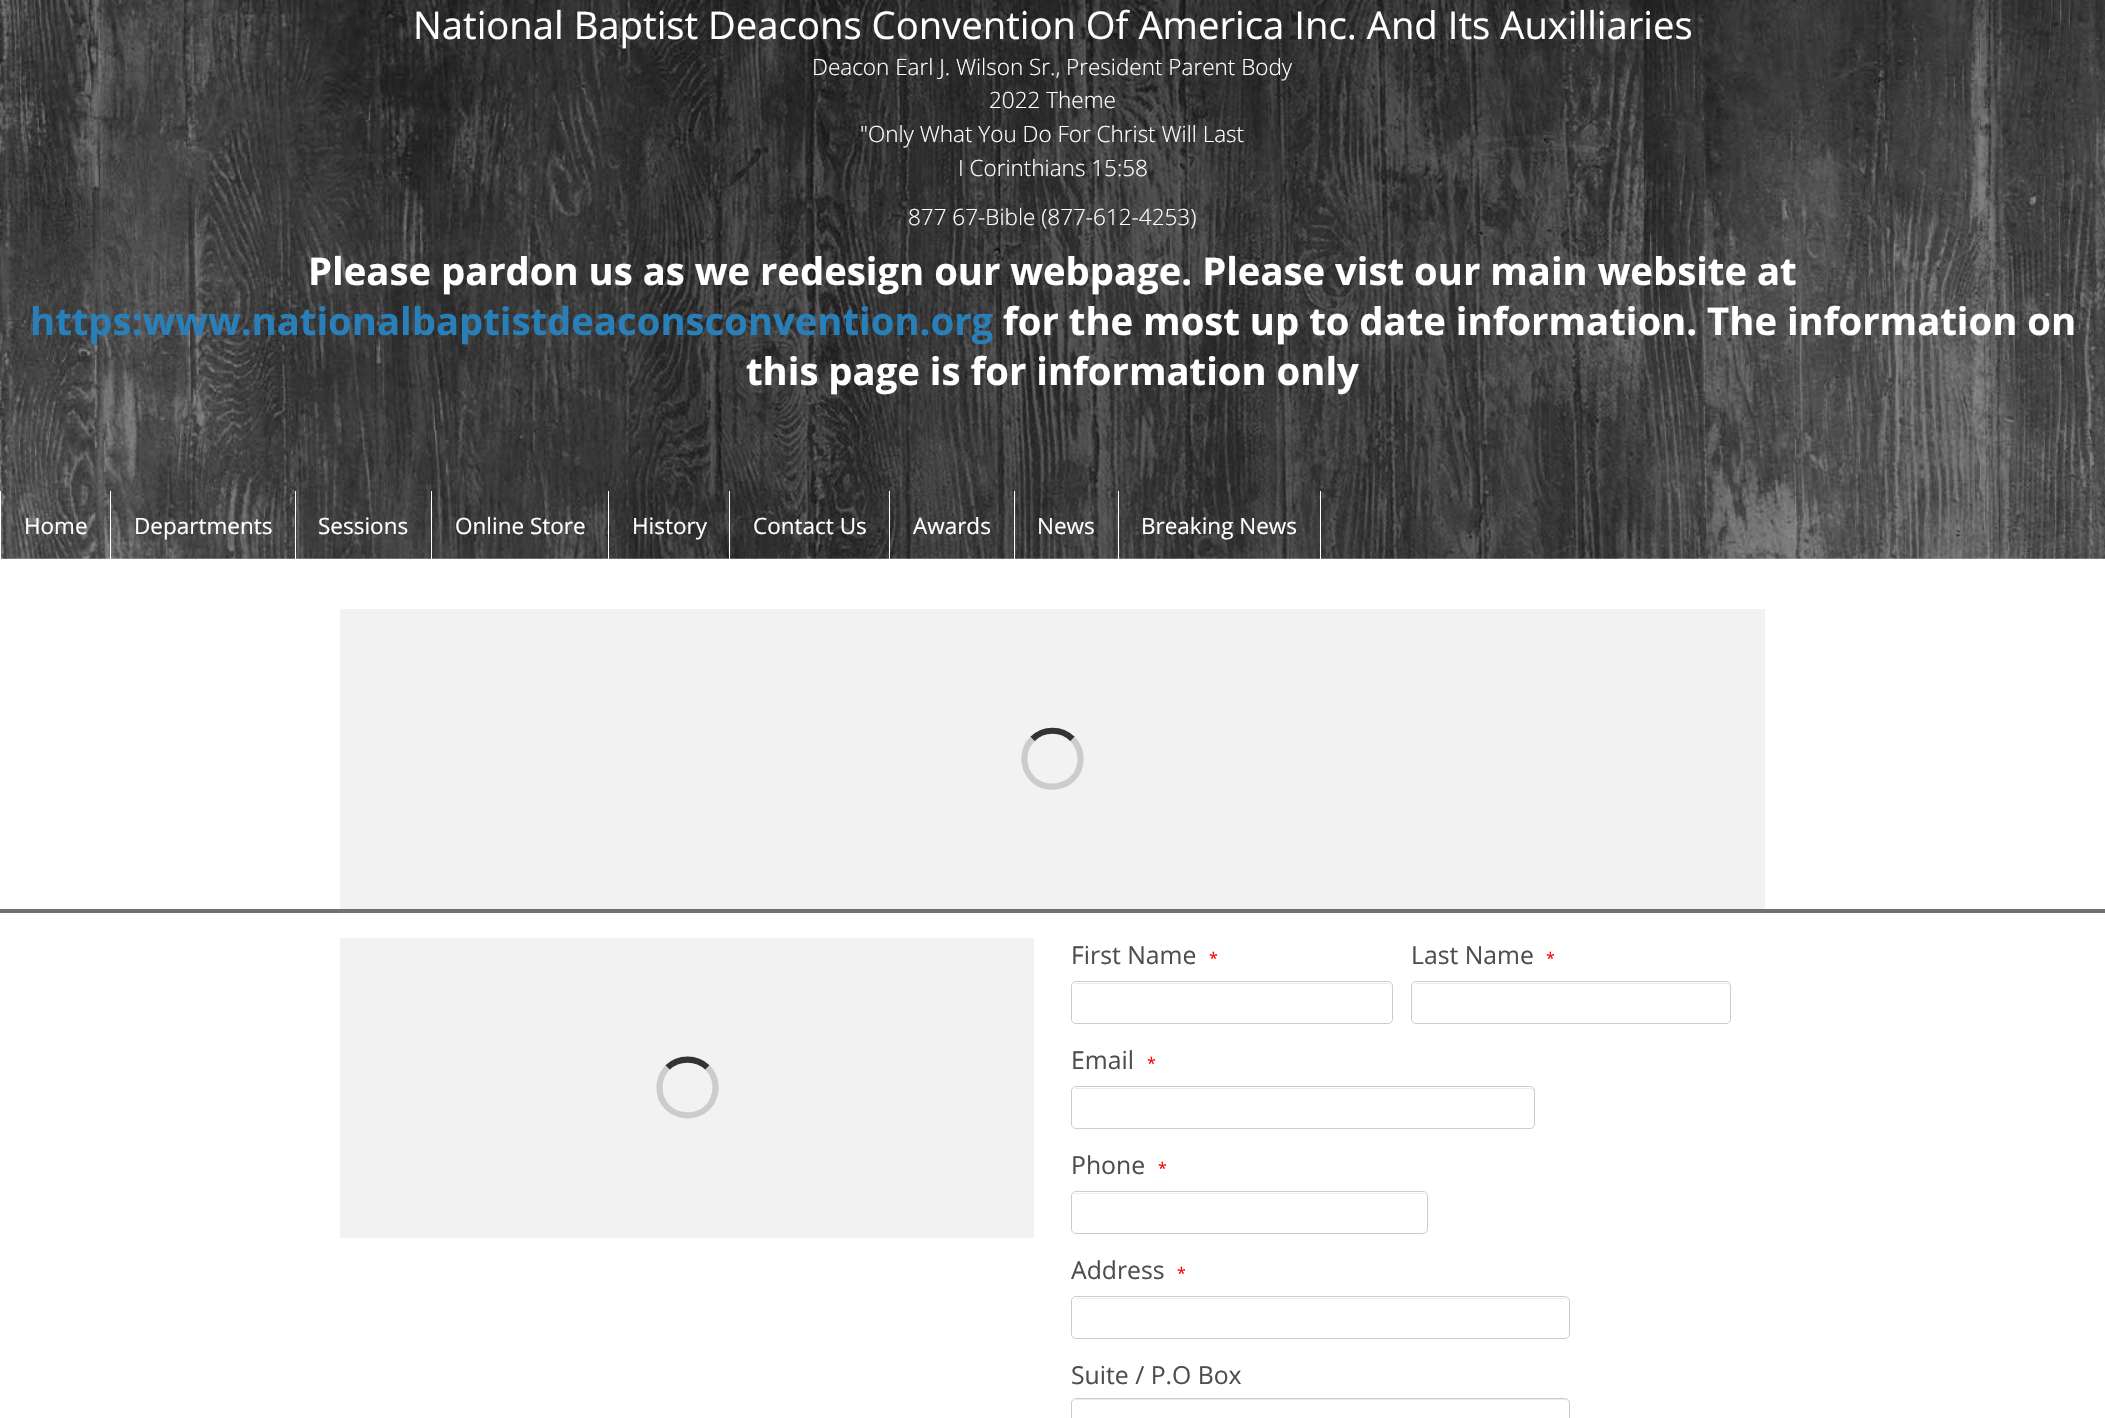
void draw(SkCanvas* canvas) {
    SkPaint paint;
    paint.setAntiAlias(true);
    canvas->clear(0xFFFFFFFF);
    canvas->drawImageRect(SkImages::DeferredFromEncodedData(SkData::MakeFromFileName("img1.png")), SkRect::MakeXYWH(0, 0, 2105, 559), SkSamplingOptions());
    SkFont font1(fontMgr->matchFamilyStyle("Open Sans", SkFontStyle::Normal()), 38.25f);
    font1.setSubpixel(true);
    paint.setColor(0xFFFFFFFF);
    canvas->drawString("National Baptist Deacons Convention Of America Inc. And Its Auxilliaries", 413, 39, font1, paint);
    SkFont font2(fontMgr->matchFamilyStyle("Open Sans", SkFontStyle(300, SkFontStyle::kNormal_Width, SkFontStyle::kUpright_Slant)), 22.5f);
    font2.setSubpixel(true);
    canvas->drawString("Deacon Earl J. Wilson Sr., President Parent Body", 812, 75, font2, paint);
    canvas->drawString("2022 Theme", 989, 108, font2, paint);
    canvas->drawString("\"Only What You Do For Christ Will Last", 860, 142, font2, paint);
    canvas->drawString("I Corinthians 15:58", 958, 176, font2, paint);
    canvas->drawString("877 67-Bible (877-612-4253)", 908, 225, font2, paint);
    SkFont font3(fontMgr->matchFamilyStyle("Open Sans", SkFontStyle::Bold()), 38.25f);
    font3.setSubpixel(true);
    canvas->drawString("Please pardon us as we redesign our webpage. Please vist our main website at", 308, 285, font3, paint);
    paint.setColor(0xFF2980B9);
    canvas->drawString("https:www.nationalbaptistdeaconsconvention.org", 30, 335, font3, paint);
    paint.setColor(0xFFFFFFFF);
    canvas->drawString("for the most up to date information. The information on", 1003, 335, font3, paint);
    canvas->drawString("this page is for information only", 746, 385, font3, paint);
    canvas->drawRect(SkRect::MakeXYWH(0, 491, 1, 68), paint);
    SkFont font4(fontMgr->matchFamilyStyle("Open Sans", SkFontStyle::Normal()), 22.5f);
    font4.setSubpixel(true);
    canvas->drawString("Home", 24, 534, font4, paint);
    canvas->drawRect(SkRect::MakeXYWH(110, 491, 1, 68), paint);
    canvas->drawString("Departments", 134, 534, font4, paint);
    canvas->drawRect(SkRect::MakeXYWH(295, 491, 1, 68), paint);
    canvas->drawString("Sessions", 318, 534, font4, paint);
    canvas->drawRect(SkRect::MakeXYWH(431, 491, 1, 68), paint);
    canvas->drawString("Online Store", 455, 534, font4, paint);
    canvas->drawRect(SkRect::MakeXYWH(608, 491, 1, 68), paint);
    canvas->drawString("History", 632, 534, font4, paint);
    canvas->drawRect(SkRect::MakeXYWH(729, 491, 1, 68), paint);
    canvas->drawString("Contact Us", 753, 534, font4, paint);
    canvas->drawRect(SkRect::MakeXYWH(889, 491, 1, 68), paint);
    canvas->drawString("Awards", 913, 534, font4, paint);
    canvas->drawRect(SkRect::MakeXYWH(1014, 491, 1, 68), paint);
    canvas->drawString("News", 1037, 534, font4, paint);
    canvas->drawRect(SkRect::MakeXYWH(1320, 491, 1, 68), paint);
    canvas->drawRect(SkRect::MakeXYWH(1118, 491, 1, 68), paint);
    canvas->drawString("Breaking News", 1141, 534, font4, paint);
    paint.setColor(0xFFF2F2F2);
    canvas->drawRect(SkRect::MakeXYWH(340, 609, 1425, 300), paint);
    paint.setStyle(SkPaint::kStroke_Style);
    paint.setStrokeWidth(6.2f);
    paint.setColor(0xFF333333);
    canvas->drawPath(SkPathBuilder().moveTo(1032.5f, 739).cubicTo(1043.5f, 728, 1061.5f, 728, 1072.5f, 739).detach(), paint);
    paint.setColor(0xFFCCCCCC);
    canvas->drawPath(SkPathBuilder().moveTo(1072.5f, 739).cubicTo(1077.5f, 744, 1080.5f, 751.5f, 1080.5f, 759).cubicTo(1080.5f, 792.5f, 1031.5f, 797, 1025, 764.5f).cubicTo(1023, 755, 1026, 745.5f, 1032.5f, 739).detach(), paint);
    paint.setStyle(SkPaint::kFill_Style);
    paint.setColor(0xFF717171);
    canvas->drawRect(SkRect::MakeXYWH(0, 909, 2105, 4), paint);
    paint.setColor(0xFFF2F2F2);
    canvas->drawRect(SkRect::MakeXYWH(340, 938, 694, 300), paint);
    paint.setStyle(SkPaint::kStroke_Style);
    paint.setColor(0xFF333333);
    canvas->drawPath(SkPathBuilder().moveTo(667.5f, 1067.5f).cubicTo(678.5f, 1057, 696.5f, 1057, 707.5f, 1067.5f).detach(), paint);
    paint.setColor(0xFFCCCCCC);
    canvas->drawPath(SkPathBuilder().moveTo(707.5f, 1067.5f).cubicTo(714, 1074, 717, 1084, 715, 1093).cubicTo(708.5f, 1126, 659.5f, 1121, 659.5f, 1087.5f).cubicTo(659.5f, 1080, 662.5f, 1073, 667.5f, 1067.5f).detach(), paint);
    SkFont font5(fontMgr->matchFamilyStyle("Open Sans", SkFontStyle::Normal()), 24.75f);
    font5.setSubpixel(true);
    paint.setStyle(SkPaint::kFill_Style);
    paint.setColor(0xFF4E4E4E);
    canvas->drawString("First Name", 1071, 964, font5, paint);
    SkFont font6(fontMgr->matchFamilyStyle("Open Sans", SkFontStyle::Normal()), 16);
    font6.setSubpixel(true);
    paint.setColor(0xFFFF0000);
    canvas->drawString("*", 1209, 964, font6, paint);
    paint.setColor(0xFFECECEC);
    canvas->drawPath(SkPathBuilder().moveTo(1076, 984).lineTo(1389, 984).lineTo(1390, 985).lineTo(1391, 988).lineTo(1391, 987).cubicTo(1391, 985, 1389, 983, 1387, 983).lineTo(1077, 983).cubicTo(1076, 983, 1075, 984, 1074, 984).close().detach(), paint);
    paint.setStyle(SkPaint::kStroke_Style);
    paint.setStrokeWidth(1);
    paint.setColor(0xFFCCCCCC);
    canvas->drawRoundRect(SkRect::MakeXYWH(1071.5f, 981.5f, 321, 42), 4.5f, 4.5f, paint);
    paint.setStyle(SkPaint::kFill_Style);
    paint.setColor(0xFF4E4E4E);
    canvas->drawString("Last Name", 1411, 964, font5, paint);
    paint.setColor(0xFFFF0000);
    canvas->drawString("*", 1546, 964, font6, paint);
    paint.setColor(0xFFECECEC);
    canvas->drawPath(SkPathBuilder().moveTo(1416, 984).lineTo(1726, 984).cubicTo(1728, 984, 1730, 985, 1730, 988).cubicTo(1730, 985, 1729, 983, 1726, 983).lineTo(1417, 983).lineTo(1414, 984).close().detach(), paint);
    paint.setStyle(SkPaint::kStroke_Style);
    paint.setColor(0xFFCCCCCC);
    canvas->drawRoundRect(SkRect::MakeXYWH(1411.5f, 981.5f, 319, 42), 4.5f, 4.5f, paint);
    paint.setStyle(SkPaint::kFill_Style);
    paint.setColor(0xFF4E4E4E);
    canvas->drawString("Email", 1071, 1069, font5, paint);
    paint.setColor(0xFFFF0000);
    canvas->drawString("*", 1147, 1069, font6, paint);
    paint.setColor(0xFFECECEC);
    canvas->drawPath(SkPathBuilder().moveTo(1076, 1089).lineTo(1530, 1089).cubicTo(1532, 1089, 1534, 1090, 1534, 1092).cubicTo(1534, 1090, 1533, 1088, 1531, 1088).lineTo(1076, 1088).lineTo(1074, 1089).close().detach(), paint);
    paint.setStyle(SkPaint::kStroke_Style);
    paint.setColor(0xFFCCCCCC);
    canvas->drawRoundRect(SkRect::MakeXYWH(1071.5f, 1086.5f, 463, 42), 4.5f, 4.5f, paint);
    paint.setStyle(SkPaint::kFill_Style);
    paint.setColor(0xFF4E4E4E);
    canvas->drawString("Phone", 1071, 1174, font5, paint);
    paint.setColor(0xFFFF0000);
    canvas->drawString("*", 1158, 1174, font6, paint);
    paint.setColor(0xFFECECEC);
    canvas->drawPath(SkPathBuilder().moveTo(1076, 1194).lineTo(1422, 1194).cubicTo(1425, 1194, 1426, 1195, 1426, 1198).lineTo(1426, 1197).cubicTo(1426, 1195, 1424, 1193, 1422, 1193).lineTo(1077, 1193).cubicTo(1076, 1193, 1075, 1194, 1074, 1194).close().detach(), paint);
    paint.setStyle(SkPaint::kStroke_Style);
    paint.setColor(0xFFCCCCCC);
    canvas->drawRoundRect(SkRect::MakeXYWH(1071.5f, 1191.5f, 356, 42), 4.5f, 4.5f, paint);
    paint.setStyle(SkPaint::kFill_Style);
    paint.setColor(0xFF4E4E4E);
    canvas->drawString("Address", 1071, 1279, font5, paint);
    paint.setColor(0xFFFF0000);
    canvas->drawString("*", 1177, 1279, font6, paint);
    paint.setColor(0xFFECECEC);
    canvas->drawPath(SkPathBuilder().moveTo(1076, 1299).lineTo(1565, 1299).cubicTo(1567, 1299, 1569, 1300, 1569, 1302).cubicTo(1569, 1300, 1567, 1298, 1565, 1298).lineTo(1077, 1298).cubicTo(1076, 1298, 1075, 1299, 1074, 1299).close().detach(), paint);
    paint.setStyle(SkPaint::kStroke_Style);
    paint.setColor(0xFFCCCCCC);
    canvas->drawRoundRect(SkRect::MakeXYWH(1071.5f, 1296.5f, 498, 42), 4.5f, 4.5f, paint);
    paint.setStyle(SkPaint::kFill_Style);
    paint.setColor(0xFF4E4E4E);
    canvas->drawString("Suite / P.O Box", 1071, 1384, font5, paint);
    paint.setColor(0xFFECECEC);
    canvas->drawPath(SkPathBuilder().moveTo(1076, 1400).lineTo(1565, 1400).cubicTo(1567, 1400, 1569, 1402, 1569, 1404).lineTo(1569, 1403).cubicTo(1569, 1401, 1567, 1399, 1565, 1399).lineTo(1077, 1399).cubicTo(1076, 1399, 1074, 1400, 1074, 1401).close().detach(), paint);
    paint.setStyle(SkPaint::kStroke_Style);
    paint.setColor(0xFFCCCCCC);
    canvas->drawRoundRect(SkRect::MakeXYWH(1071.5f, 1398.5f, 498, 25), 4.5f, 4.5f, paint);
}
